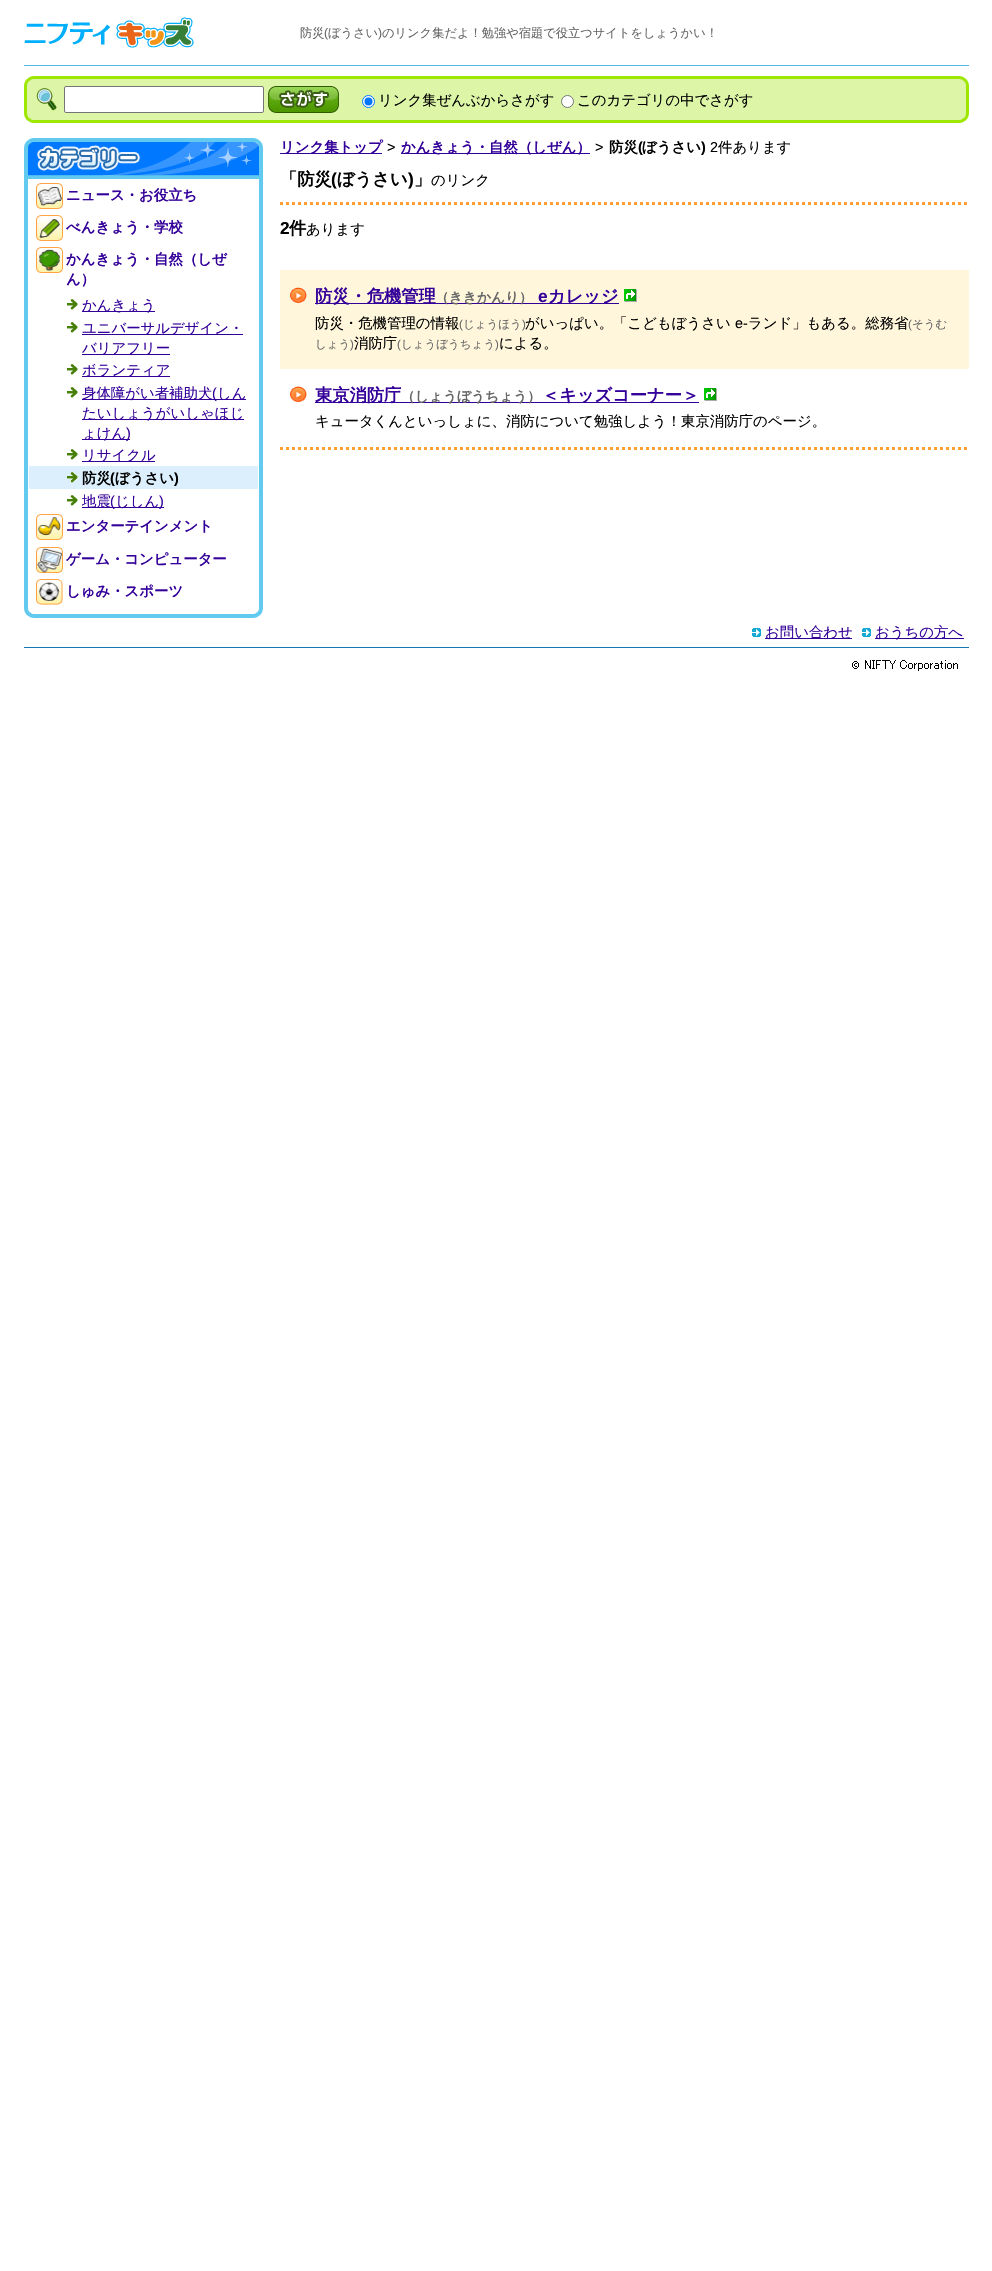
void draw(SkCanvas* canvas) {
    SkPaint paint;
    paint.setAntiAlias(true);
    canvas->clear(0xFFFFFFFF);
    canvas->drawImageRect(SkImages::DeferredFromEncodedData(SkData::MakeFromFileName("img1.png")), SkRect::MakeXYWH(24, 17, 170, 31), SkSamplingOptions());
    SkFont font1(fontMgr->matchFamilyStyle("WenQuanYi Zen Hei", SkFontStyle(500, SkFontStyle::kNormal_Width, SkFontStyle::kUpright_Slant)), 12.25f);
    font1.setSubpixel(true);
    paint.setColor(0xFF666666);
    canvas->drawString("防災", 300, 37, font1, paint);
    SkFont font2(fontMgr->matchFamilyStyle("Liberation Sans", SkFontStyle::Normal()), 12.25f);
    font2.setSubpixel(true);
    canvas->drawString("(", 324, 37, font2, paint);
    canvas->drawString("ぼうさい", 328, 37, font1, paint);
    canvas->drawString(")", 378, 37, font2, paint);
    canvas->drawString("のリンク集だよ！勉強や宿題で役立つサイトをしょうかい！", 382, 37, font1, paint);
    paint.setColor(0xFF50BAE4);
    canvas->drawRect(SkRect::MakeXYWH(24, 65, 945, 1), paint);
    canvas->drawImageRect(SkImages::DeferredFromEncodedData(SkData::MakeFromFileName("img2.png")), SkRect::MakeXYWH(24, 86, 945, 27), SkSamplingOptions());
    canvas->drawImageRect(SkImages::DeferredFromEncodedData(SkData::MakeFromFileName("img3.png")), SkRect::MakeXYWH(24, 76, 945, 10), SkSamplingOptions());
    canvas->drawImageRect(SkImages::DeferredFromEncodedData(SkData::MakeFromFileName("img4.png")), SkRect::MakeXYWH(36, 88, 21, 23), SkSamplingOptions());
    paint.setColor(0xFFFFFFFF);
    canvas->drawRoundRect(SkRect::MakeXYWH(64.5f, 86.5f, 199, 26), 1.5f, 1.5f, paint);
    paint.setStyle(SkPaint::kStroke_Style);
    paint.setStrokeWidth(1);
    paint.setColor(0xFF767676);
    canvas->drawRoundRect(SkRect::MakeXYWH(64.5f, 86.5f, 199, 26), 1.5f, 1.5f, paint);
    canvas->drawImageRect(SkImages::DeferredFromEncodedData(SkData::MakeFromFileName("img5.png")), SkRect::MakeXYWH(268, 86, 71, 27), SkSamplingOptions());
    paint.setStyle(SkPaint::kFill_Style);
    paint.setColor(0xFFFFFFFF);
    canvas->drawCircle(368.5f, 101.5f, 6, paint);
    paint.setStyle(SkPaint::kStroke_Style);
    paint.setColor(0xFF0075FF);
    canvas->drawCircle(368.5f, 101.5f, 6, paint);
    paint.setStyle(SkPaint::kFill_Style);
    canvas->drawCircle(368.5f, 101.5f, 4, paint);
    SkFont font3(fontMgr->matchFamilyStyle("WenQuanYi Zen Hei", SkFontStyle(500, SkFontStyle::kNormal_Width, SkFontStyle::kUpright_Slant)), 14.4f);
    font3.setSubpixel(true);
    paint.setColor(0xFF000000);
    canvas->drawString("リンク集ぜんぶからさがす", 378, 105, font3, paint);
    paint.setColor(0xFFFFFFFF);
    canvas->drawCircle(567.5f, 101.5f, 6, paint);
    paint.setStyle(SkPaint::kStroke_Style);
    paint.setColor(0xFF767676);
    canvas->drawCircle(567.5f, 101.5f, 6, paint);
    paint.setStyle(SkPaint::kFill_Style);
    paint.setColor(0xFF000000);
    canvas->drawString("このカテゴリの中でさがす", 577, 105, font3, paint);
    canvas->drawImageRect(SkImages::DeferredFromEncodedData(SkData::MakeFromFileName("img6.png")), SkRect::MakeXYWH(24, 113, 945, 10), SkSamplingOptions());
    canvas->drawImageRect(SkImages::DeferredFromEncodedData(SkData::MakeFromFileName("img7.png")), SkRect::MakeXYWH(24, 179, 239, 429), SkSamplingOptions());
    canvas->drawImageRect(SkImages::DeferredFromEncodedData(SkData::MakeFromFileName("img8.png")), SkRect::MakeXYWH(24, 138, 239, 41), SkSamplingOptions());
    canvas->drawImageRect(SkImages::DeferredFromEncodedData(SkData::MakeFromFileName("img9.png")), SkRect::MakeXYWH(24, 608, 239, 10), SkSamplingOptions());
    canvas->drawImageRect(SkImages::DeferredFromEncodedData(SkData::MakeFromFileName("img10.png")), SkRect::MakeXYWH(36, 183, 27, 26), SkSamplingOptions());
    SkFont font4(fontMgr->matchFamilyStyle("WenQuanYi Zen Hei", SkFontStyle::Bold()), 14.4f);
    font4.setSubpixel(true);
    paint.setColor(0xFF330099);
    canvas->drawString("ニュース・お役立ち", 66, 200, font4, paint);
    canvas->drawImageRect(SkImages::DeferredFromEncodedData(SkData::MakeFromFileName("img11.png")), SkRect::MakeXYWH(36, 215, 27, 26), SkSamplingOptions());
    canvas->drawString("べんきょう・学校", 66, 232, font4, paint);
    canvas->drawImageRect(SkImages::DeferredFromEncodedData(SkData::MakeFromFileName("img12.png")), SkRect::MakeXYWH(36, 247, 27, 26), SkSamplingOptions());
    canvas->drawString("かんきょう・自然（しぜ", 66, 264, font4, paint);
    canvas->drawString("ん）", 66, 284, font4, paint);
    canvas->drawImageRect(SkImages::DeferredFromEncodedData(SkData::MakeFromFileName("img13.png")), SkRect::MakeXYWH(67, 299, 11, 11), SkSamplingOptions());
    canvas->drawRect(SkRect::MakeXYWH(82, 311, 73, 1), paint);
    canvas->drawString("かんきょう", 82, 310, font3, paint);
    canvas->drawImageRect(SkImages::DeferredFromEncodedData(SkData::MakeFromFileName("img13.png")), SkRect::MakeXYWH(67, 322, 11, 11), SkSamplingOptions());
    canvas->drawRect(SkRect::MakeXYWH(82, 334, 161, 1), paint);
    canvas->drawString("ユニバーサルデザイン・", 82, 333, font3, paint);
    canvas->drawRect(SkRect::MakeXYWH(82, 354, 88, 1), paint);
    canvas->drawString("バリアフリー", 82, 353, font3, paint);
    canvas->drawImageRect(SkImages::DeferredFromEncodedData(SkData::MakeFromFileName("img13.png")), SkRect::MakeXYWH(67, 364, 11, 11), SkSamplingOptions());
    canvas->drawRect(SkRect::MakeXYWH(82, 376, 88, 1), paint);
    canvas->drawString("ボランティア", 82, 375, font3, paint);
    canvas->drawImageRect(SkImages::DeferredFromEncodedData(SkData::MakeFromFileName("img13.png")), SkRect::MakeXYWH(67, 387, 11, 11), SkSamplingOptions());
    canvas->drawRect(SkRect::MakeXYWH(82, 399, 164, 1), paint);
    canvas->drawString("身体障がい者補助犬", 82, 398, font3, paint);
    SkFont font5(fontMgr->matchFamilyStyle("Liberation Sans", SkFontStyle::Normal()), 14.4f);
    font5.setSubpixel(true);
    canvas->drawString("(", 212, 398, font5, paint);
    canvas->drawString("しん", 217, 398, font3, paint);
    canvas->drawRect(SkRect::MakeXYWH(82, 419, 162, 1), paint);
    canvas->drawString("たいしょうがいしゃほじ", 82, 418, font3, paint);
    canvas->drawRect(SkRect::MakeXYWH(82, 439, 48, 1), paint);
    canvas->drawString("ょけん", 82, 438, font3, paint);
    canvas->drawString(")", 126, 438, font5, paint);
    canvas->drawImageRect(SkImages::DeferredFromEncodedData(SkData::MakeFromFileName("img13.png")), SkRect::MakeXYWH(67, 449, 11, 11), SkSamplingOptions());
    canvas->drawRect(SkRect::MakeXYWH(82, 461, 73, 1), paint);
    canvas->drawString("リサイクル", 82, 460, font3, paint);
    paint.setColor(0xFFDBEFFD);
    canvas->drawRect(SkRect::MakeXYWH(29, 466, 229, 23), paint);
    canvas->drawImageRect(SkImages::DeferredFromEncodedData(SkData::MakeFromFileName("img14.png")), SkRect::MakeXYWH(67, 472, 11, 11), SkSamplingOptions());
    paint.setColor(0xFF000000);
    canvas->drawString("防災", 82, 483, font4, paint);
    SkFont font6(fontMgr->matchFamilyStyle("Liberation Sans", SkFontStyle::Bold()), 14.4f);
    font6.setSubpixel(true);
    canvas->drawString("(", 110, 483, font6, paint);
    canvas->drawString("ぼうさい", 115, 483, font4, paint);
    canvas->drawString(")", 174, 483, font6, paint);
    canvas->drawImageRect(SkImages::DeferredFromEncodedData(SkData::MakeFromFileName("img13.png")), SkRect::MakeXYWH(67, 495, 11, 11), SkSamplingOptions());
    paint.setColor(0xFF330099);
    canvas->drawRect(SkRect::MakeXYWH(82, 507, 82, 1), paint);
    canvas->drawString("地震", 82, 506, font3, paint);
    canvas->drawString("(", 110, 506, font5, paint);
    canvas->drawString("じしん", 115, 506, font3, paint);
    canvas->drawString(")", 159, 506, font5, paint);
    canvas->drawImageRect(SkImages::DeferredFromEncodedData(SkData::MakeFromFileName("img15.png")), SkRect::MakeXYWH(36, 514, 27, 26), SkSamplingOptions());
    canvas->drawString("エンターテインメント", 66, 531, font4, paint);
    canvas->drawImageRect(SkImages::DeferredFromEncodedData(SkData::MakeFromFileName("img16.png")), SkRect::MakeXYWH(36, 547, 27, 26), SkSamplingOptions());
    canvas->drawString("ゲーム・コンピューター", 66, 564, font4, paint);
    canvas->drawImageRect(SkImages::DeferredFromEncodedData(SkData::MakeFromFileName("img17.png")), SkRect::MakeXYWH(36, 579, 27, 26), SkSamplingOptions());
    canvas->drawString("しゅみ・スポーツ", 66, 596, font4, paint);
    canvas->drawRect(SkRect::MakeXYWH(280, 153, 102, 1), paint);
    canvas->drawString("リンク集トップ", 280, 152, font4, paint);
    paint.setColor(0xFF000000);
    canvas->drawString(">", 387, 152, font5, paint);
    paint.setColor(0xFF330099);
    canvas->drawRect(SkRect::MakeXYWH(401, 153, 189, 1), paint);
    canvas->drawString("かんきょう・自然（しぜん）", 401, 152, font4, paint);
    paint.setColor(0xFF000000);
    canvas->drawString(">", 595, 152, font5, paint);
    canvas->drawString("防災", 609, 152, font4, paint);
    canvas->drawString("(", 638, 152, font6, paint);
    canvas->drawString("ぼうさい", 642, 152, font4, paint);
    canvas->drawString(")", 701, 152, font6, paint);
    canvas->drawString("2", 710, 152, font5, paint);
    canvas->drawString("件あります", 718, 152, font3, paint);
    SkFont font7(fontMgr->matchFamilyStyle("WenQuanYi Zen Hei", SkFontStyle::Bold()), 17.25f);
    font7.setSubpixel(true);
    canvas->drawString("「防災", 280, 185, font7, paint);
    SkFont font8(fontMgr->matchFamilyStyle("Liberation Sans", SkFontStyle::Bold()), 17.25f);
    font8.setSubpixel(true);
    canvas->drawString("(", 331, 185, font8, paint);
    canvas->drawString("ぼうさい", 337, 185, font7, paint);
    canvas->drawString(")", 408, 185, font8, paint);
    canvas->drawString("」", 414, 185, font7, paint);
    canvas->drawString("のリンク", 431, 185, font3, paint);
    canvas->drawImageRect(SkImages::DeferredFromEncodedData(SkData::MakeFromFileName("img18.png")), SkRect::MakeXYWH(280, 202, 687, 3), SkSamplingOptions());
    canvas->drawString("2", 280, 234, font8, paint);
    canvas->drawString("件", 289, 234, font7, paint);
    canvas->drawString("あります", 306, 234, font3, paint);
    paint.setColor(0xFFFFF6DB);
    canvas->drawRect(SkRect::MakeXYWH(280, 270, 689, 99), paint);
    canvas->drawImageRect(SkImages::DeferredFromEncodedData(SkData::MakeFromFileName("img19.png")), SkRect::MakeXYWH(290, 287, 17, 16), SkSamplingOptions());
    paint.setColor(0xFF330099);
    canvas->drawRect(SkRect::MakeXYWH(315, 303, 304, 1), paint);
    canvas->drawString("防災・危機管理", 315, 302, font7, paint);
    SkFont font9(fontMgr->matchFamilyStyle("WenQuanYi Zen Hei", SkFontStyle::Bold()), 13.75f);
    font9.setSubpixel(true);
    paint.setColor(0xFF666666);
    canvas->drawString("（ききかんり）", 435, 302, font9, paint);
    paint.setColor(0xFF330099);
    canvas->drawString("e", 538, 302, font8, paint);
    canvas->drawString("カレッジ", 548, 302, font7, paint);
    canvas->drawImageRect(SkImages::DeferredFromEncodedData(SkData::MakeFromFileName("img20.png")), SkRect::MakeXYWH(624, 289, 13, 13), SkSamplingOptions());
    paint.setColor(0xFF000000);
    canvas->drawString("防災・危機管理の情報", 315, 328, font3, paint);
    SkFont font10(fontMgr->matchFamilyStyle("Liberation Sans", SkFontStyle::Normal()), 11.5f);
    font10.setSubpixel(true);
    paint.setColor(0xFF666666);
    canvas->drawString("(", 459, 328, font10, paint);
    SkFont font11(fontMgr->matchFamilyStyle("WenQuanYi Zen Hei", SkFontStyle(500, SkFontStyle::kNormal_Width, SkFontStyle::kUpright_Slant)), 11.5f);
    font11.setSubpixel(true);
    canvas->drawString("じょうほう", 463, 328, font11, paint);
    canvas->drawString(")", 522, 328, font10, paint);
    paint.setColor(0xFF000000);
    canvas->drawString("がいっぱい。「こどもぼうさい", 525, 328, font3, paint);
    canvas->drawString("e-", 735, 328, font5, paint);
    canvas->drawString("ランド」もある。総務省", 748, 328, font3, paint);
    paint.setColor(0xFF666666);
    canvas->drawString("(", 908, 328, font10, paint);
    canvas->drawString("そうむ", 912, 328, font11, paint);
    canvas->drawString("しょう", 315, 348, font11, paint);
    canvas->drawString(")", 350, 348, font10, paint);
    paint.setColor(0xFF000000);
    canvas->drawString("消防庁", 354, 348, font3, paint);
    paint.setColor(0xFF666666);
    canvas->drawString("(", 397, 348, font10, paint);
    canvas->drawString("しょうぼうちょう", 401, 348, font11, paint);
    canvas->drawString(")", 495, 348, font10, paint);
    paint.setColor(0xFF000000);
    canvas->drawString("による。", 499, 348, font3, paint);
    canvas->drawImageRect(SkImages::DeferredFromEncodedData(SkData::MakeFromFileName("img21.png")), SkRect::MakeXYWH(290, 386, 17, 16), SkSamplingOptions());
    paint.setColor(0xFF330099);
    canvas->drawRect(SkRect::MakeXYWH(315, 402, 384, 1), paint);
    canvas->drawString("東京消防庁", 315, 401, font7, paint);
    paint.setColor(0xFF666666);
    canvas->drawString("（しょうぼうちょう）", 401, 401, font9, paint);
    paint.setColor(0xFF330099);
    canvas->drawString("＜キッズコーナー＞", 542, 401, font7, paint);
    canvas->drawImageRect(SkImages::DeferredFromEncodedData(SkData::MakeFromFileName("img20.png")), SkRect::MakeXYWH(704, 388, 13, 13), SkSamplingOptions());
    paint.setColor(0xFF000000);
    canvas->drawString("キュータくんといっしょに、消防について勉強しよう！東京消防庁のページ。", 315, 426, font3, paint);
    canvas->drawImageRect(SkImages::DeferredFromEncodedData(SkData::MakeFromFileName("img18.png")), SkRect::MakeXYWH(280, 447, 687, 3), SkSamplingOptions());
    canvas->drawImageRect(SkImages::DeferredFromEncodedData(SkData::MakeFromFileName("img22.png")), SkRect::MakeXYWH(752, 628, 9, 9), SkSamplingOptions());
    paint.setColor(0xFF330099);
    canvas->drawRect(SkRect::MakeXYWH(765, 638, 87, 1), paint);
    canvas->drawString("お問い合わせ", 765, 637, font3, paint);
    canvas->drawImageRect(SkImages::DeferredFromEncodedData(SkData::MakeFromFileName("img22.png")), SkRect::MakeXYWH(862, 628, 9, 9), SkSamplingOptions());
    canvas->drawRect(SkRect::MakeXYWH(875, 638, 89, 1), paint);
    canvas->drawString("おうちの方へ", 875, 637, font3, paint);
    paint.setColor(0xFF1579AE);
    canvas->drawRect(SkRect::MakeXYWH(24, 647, 945, 1), paint);
    canvas->drawImageRect(SkImages::DeferredFromEncodedData(SkData::MakeFromFileName("img23.png")), SkRect::MakeXYWH(852, 660, 106, 11), SkSamplingOptions());
}
